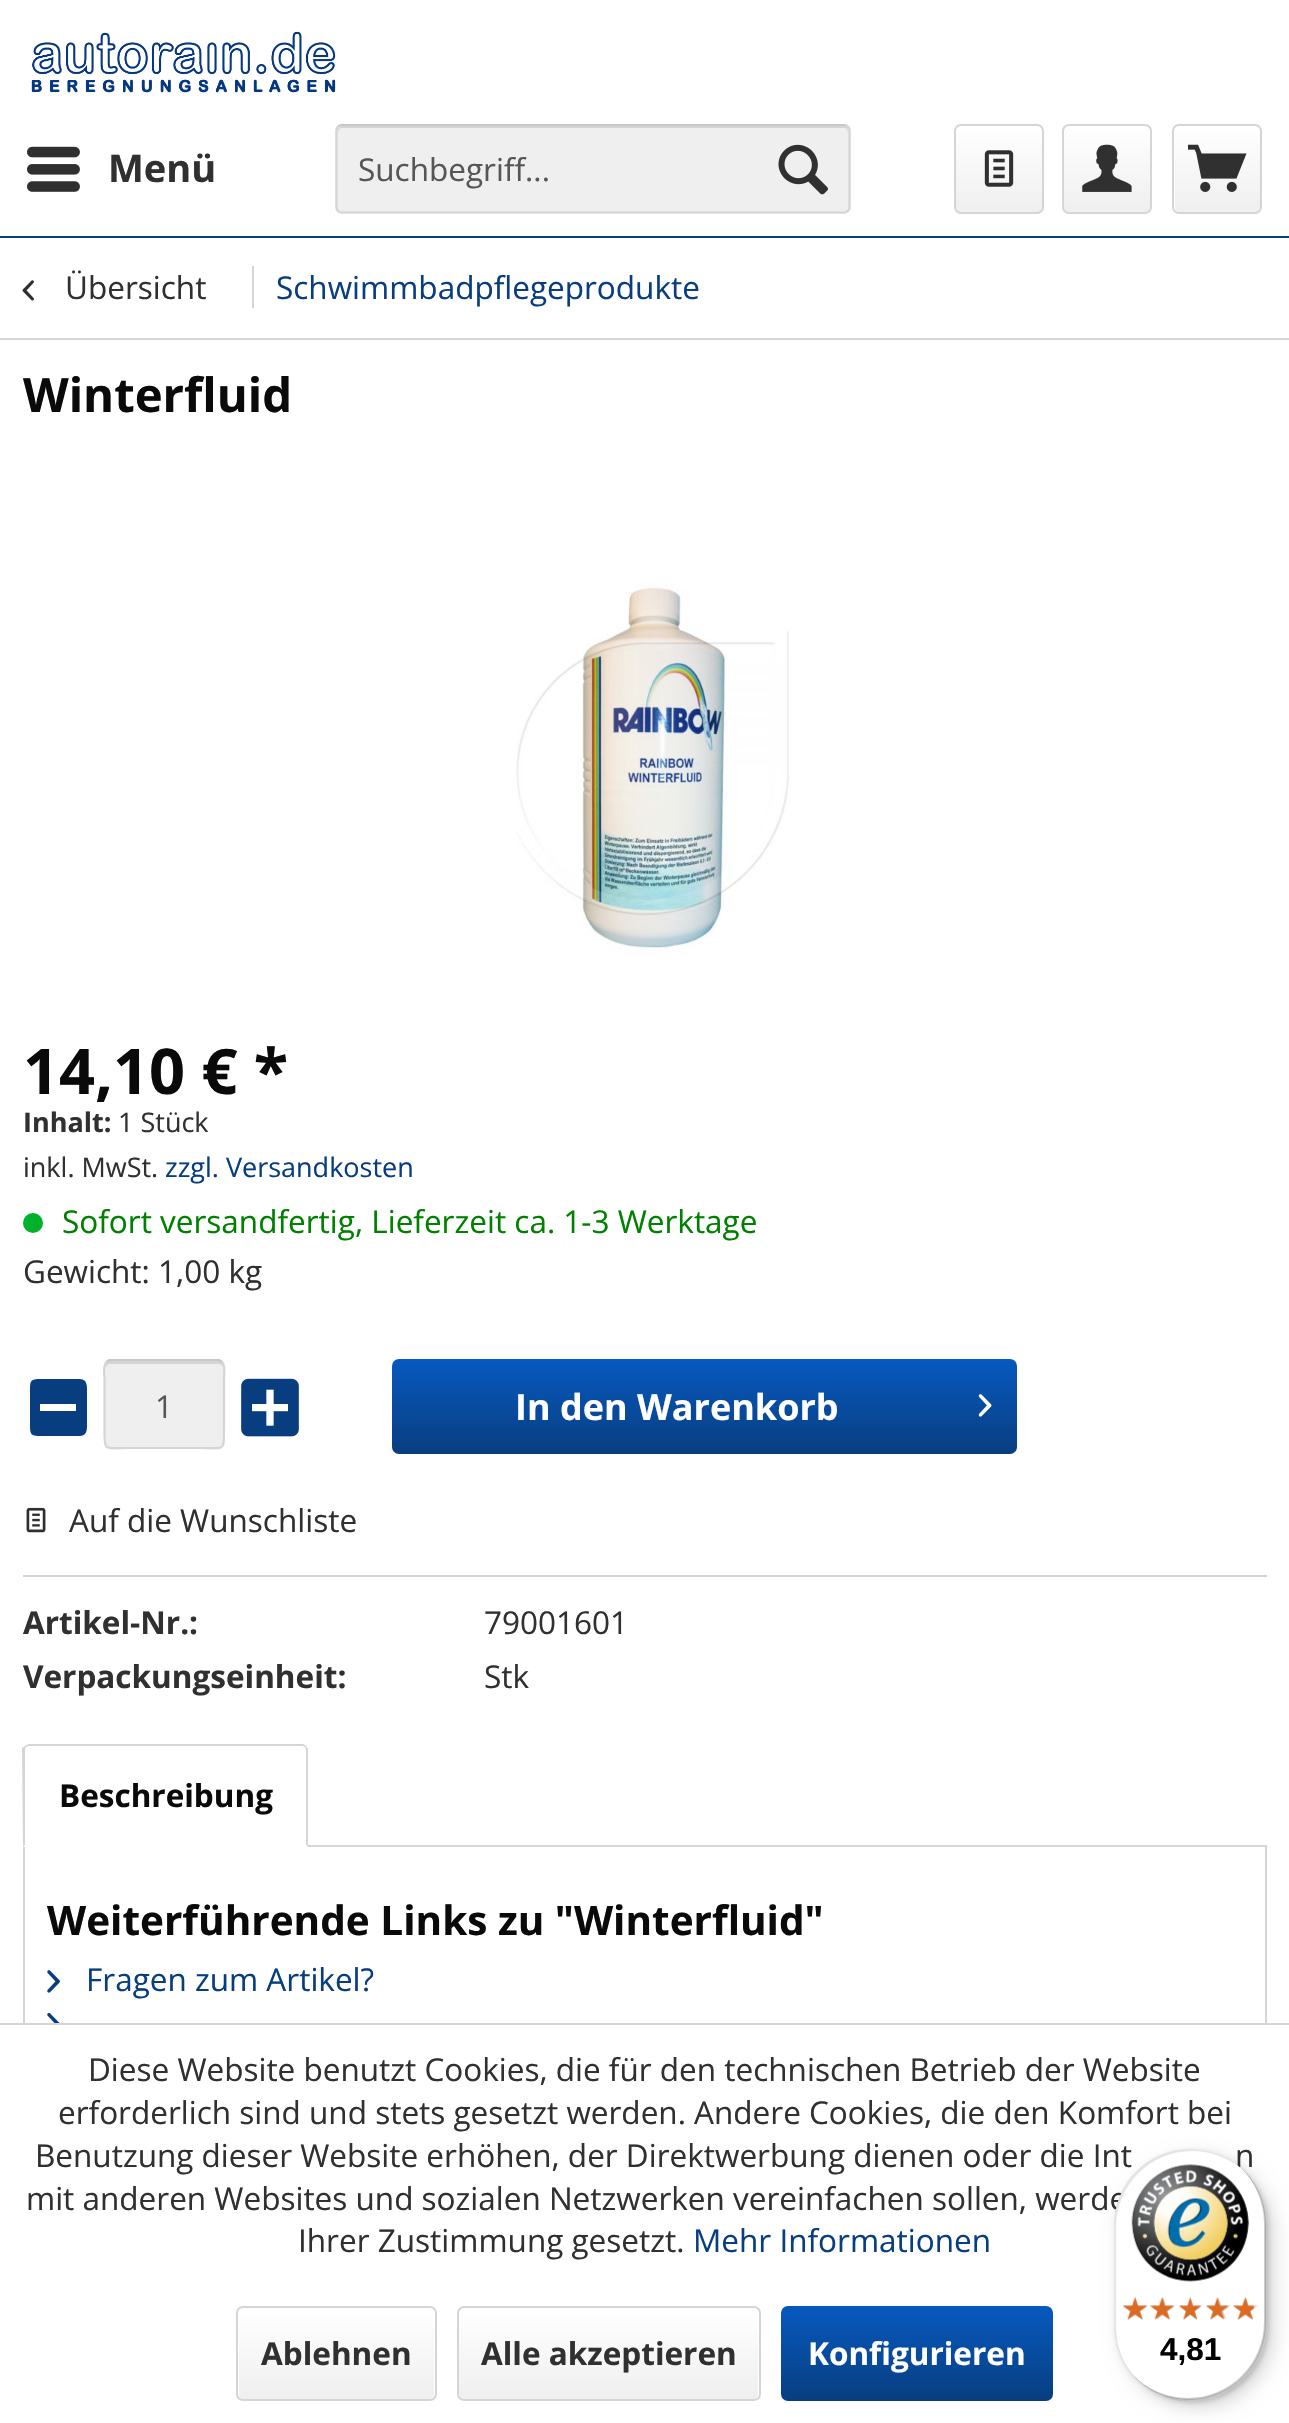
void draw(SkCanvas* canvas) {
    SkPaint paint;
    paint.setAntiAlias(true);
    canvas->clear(0xFFFFFFFF);
    paint.setColor(0xFF083E80);
    canvas->drawRect(SkRect::MakeXYWH(0, 236, 1289, 2), paint);
    canvas->drawImageRect(SkImages::DeferredFromEncodedData(SkData::MakeFromFileName("img1.png")), SkRect::MakeXYWH(31, 31, 305, 62), SkSamplingOptions());
    canvas->drawImageRect(SkImages::DeferredFromEncodedData(SkData::MakeFromFileName("img2.png")), SkRect::MakeXYWH(27, 146, 53, 46), SkSamplingOptions());
    SkFont font1(fontMgr->matchFamilyStyle("Open Sans", SkFontStyle::Bold()), 38);
    font1.setSubpixel(true);
    paint.setColor(0xFF303030);
    canvas->drawString("Menü", 108, 182, font1, paint);
    paint.setColor(0xFFEFEFEF);
    canvas->drawRoundRect(SkRect::MakeXYWH(335, 124, 516, 90), 7, 7, paint);
    paint.setColor(0xFFD5D5D5);
    canvas->drawPath(SkPathBuilder().moveTo(342, 128).lineTo(844, 128).cubicTo(846, 128, 848, 130, 848, 133).lineTo(848, 131).cubicTo(848, 128, 846, 126, 843, 126).lineTo(343, 126).cubicTo(340, 126, 338, 128, 338, 131).lineTo(338, 133).cubicTo(338, 130, 340, 128, 342, 128).close().detach(), paint);
    paint.setStyle(SkPaint::kStroke_Style);
    paint.setStrokeWidth(2.2f);
    paint.setColor(0xFFC8C8C8);
    canvas->drawPath(SkPathBuilder().moveTo(338, 126.5f).cubicTo(339, 125.5f, 340.5f, 125, 342, 125).lineTo(844, 125).cubicTo(845, 125, 846.5f, 125.5f, 847.5f, 126.5f).detach(), paint);
    paint.setColor(0xFFD5D5D5);
    canvas->drawPath(SkPathBuilder().moveTo(847.5f, 126.5f).cubicTo(849, 127.5f, 849.5f, 129, 849.5f, 130.5f).lineTo(849.5f, 207).cubicTo(849.5f, 208.5f, 849, 210, 847.5f, 211).cubicTo(846.5f, 212, 845, 212.5f, 844, 212.5f).lineTo(342, 212.5f).cubicTo(340.5f, 212.5f, 339, 212, 338, 211).cubicTo(337, 210, 336.5f, 208.5f, 336.5f, 207).lineTo(336.5f, 130.5f).cubicTo(336.5f, 129, 337, 127.5f, 338, 126.5f).detach(), paint);
    SkFont font2(fontMgr->matchFamilyStyle("Open Sans", SkFontStyle::Normal()), 31.5f);
    font2.setSubpixel(true);
    paint.setStyle(SkPaint::kFill_Style);
    paint.setColor(0xFF565656);
    canvas->drawString("Suchbegriff...", 358, 181, font2, paint);
    canvas->drawImageRect(SkImages::DeferredFromEncodedData(SkData::MakeFromFileName("img3.png")), SkRect::MakeXYWH(778, 144, 50, 51), SkSamplingOptions());
    {
        const SkColor colors[] = {0xFFFFFFFF, 0xFFEFEFEF};
        const float stops[] = {0, 1};
        const SkPoint ends[] = {{999, 126}, {999, 212}};
        paint.setShader(SkGradientShader::MakeLinear(ends, colors, stops, 2, SkTileMode::kClamp));
        paint.setAlpha(255);
    }
    canvas->drawRoundRect(SkRect::MakeXYWH(956, 126, 86, 86), 5, 5, paint);
    paint.setStyle(SkPaint::kStroke_Style);
    paint.setStrokeWidth(2);
    paint.setShader(nullptr);
    paint.setColor(0xFFD5D5D5);
    canvas->drawRoundRect(SkRect::MakeXYWH(955, 125, 88, 88), 6, 6, paint);
    canvas->drawImageRect(SkImages::DeferredFromEncodedData(SkData::MakeFromFileName("img4.png")), SkRect::MakeXYWH(984, 150, 30, 37), SkSamplingOptions());
    paint.setStyle(SkPaint::kFill_Style);
    {
        const SkColor colors[] = {0xFFFFFFFF, 0xFFEFEFEF};
        const float stops[] = {0, 1};
        const SkPoint ends[] = {{1107, 126}, {1107, 212}};
        paint.setShader(SkGradientShader::MakeLinear(ends, colors, stops, 2, SkTileMode::kClamp));
        paint.setAlpha(255);
    }
    canvas->drawRoundRect(SkRect::MakeXYWH(1064, 126, 86, 86), 5, 5, paint);
    paint.setStyle(SkPaint::kStroke_Style);
    paint.setShader(nullptr);
    paint.setColor(0xFFD5D5D5);
    canvas->drawRoundRect(SkRect::MakeXYWH(1063, 125, 88, 88), 6, 6, paint);
    canvas->drawImageRect(SkImages::DeferredFromEncodedData(SkData::MakeFromFileName("img5.png")), SkRect::MakeXYWH(1082, 144, 50, 48), SkSamplingOptions());
    paint.setStyle(SkPaint::kFill_Style);
    {
        const SkColor colors[] = {0xFFFFFFFF, 0xFFEFEFEF};
        const float stops[] = {0, 1};
        const SkPoint ends[] = {{1217, 126}, {1217, 212}};
        paint.setShader(SkGradientShader::MakeLinear(ends, colors, stops, 2, SkTileMode::kClamp));
        paint.setAlpha(255);
    }
    canvas->drawRoundRect(SkRect::MakeXYWH(1175, 126, 85, 86), 5, 5, paint);
    paint.setStyle(SkPaint::kStroke_Style);
    paint.setShader(nullptr);
    paint.setColor(0xFFD5D5D5);
    canvas->drawRoundRect(SkRect::MakeXYWH(1173, 125, 88, 88), 6, 6, paint);
    canvas->drawImageRect(SkImages::DeferredFromEncodedData(SkData::MakeFromFileName("img6.png")), SkRect::MakeXYWH(1188, 144, 59, 48), SkSamplingOptions());
    paint.setStyle(SkPaint::kFill_Style);
    canvas->drawRect(SkRect::MakeXYWH(0, 338, 1289, 2), paint);
    canvas->drawImageRect(SkImages::DeferredFromEncodedData(SkData::MakeFromFileName("img7.png")), SkRect::MakeXYWH(22, 280, 12, 21), SkSamplingOptions());
    paint.setColor(0xFF303030);
    canvas->drawString("Übersicht", 65, 299, font2, paint);
    paint.setColor(0xFFD5D5D5);
    canvas->drawRect(SkRect::MakeXYWH(252, 266, 2, 42), paint);
    paint.setColor(0xFF083E80);
    canvas->drawString("Schwimmbadpflegeprodukte", 276, 299, font2, paint);
    SkFont font3(fontMgr->matchFamilyStyle("Open Sans", SkFontStyle::Bold()), 47.25f);
    font3.setSubpixel(true);
    paint.setColor(0xFF0A0A0A);
    canvas->drawString("Winterfluid", 23, 412, font3, paint);
    canvas->drawImageRect(SkImages::DeferredFromEncodedData(SkData::MakeFromFileName("img8.png")), SkRect::MakeXYWH(516, 579, 273, 371), SkSamplingOptions());
    SkFont font4(fontMgr->matchFamilyStyle("Open Sans", SkFontStyle::Bold()), 63);
    font4.setSubpixel(true);
    canvas->drawString("14,10 € *", 23, 1094, font4, paint);
    SkFont font5(fontMgr->matchFamilyStyle("Open Sans", SkFontStyle::Bold()), 27);
    font5.setSubpixel(true);
    paint.setColor(0xFF303030);
    canvas->drawString("Inhalt:", 23, 1132, font5, paint);
    SkFont font6(fontMgr->matchFamilyStyle("Open Sans", SkFontStyle::Normal()), 27);
    font6.setSubpixel(true);
    canvas->drawString("1 Stück", 118, 1132, font6, paint);
    canvas->drawString("inkl. MwSt.", 23, 1177, font6, paint);
    paint.setColor(0xFF083E80);
    canvas->drawString("zzgl. Versandkosten", 165, 1177, font6, paint);
    paint.setColor(0xFF00B22B);
    canvas->drawCircle(33, 1223, 10, paint);
    paint.setColor(0xFF008000);
    canvas->drawString("Sofort versandfertig, Lieferzeit ca. 1-3 Werktage", 62, 1233, font2, paint);
    paint.setColor(0xFF303030);
    canvas->drawString("Gewicht: 1,00 kg", 23, 1283, font2, paint);
    paint.setColor(0xFF083E80);
    canvas->drawPath(SkPathBuilder().moveTo(80, 1379).lineTo(44, 1379).cubicTo(30, 1379, 30, 1379, 30, 1393).lineTo(30, 1422).cubicTo(30, 1436, 30, 1436, 44, 1436).lineTo(80, 1436).cubicTo(88, 1436, 87, 1427, 87, 1422).lineTo(87, 1393).cubicTo(87, 1388, 88, 1379, 80, 1379).close().moveTo(76, 1411).lineTo(40, 1411).lineTo(40, 1404).lineTo(76, 1404).close().detach(), paint);
    paint.setColor(0xFFEFEFEF);
    canvas->drawRoundRect(SkRect::MakeXYWH(104, 1359, 121, 90), 7, 7, paint);
    paint.setColor(0xFFD5D5D5);
    canvas->drawPath(SkPathBuilder().moveTo(110, 1364).lineTo(218, 1364).cubicTo(221, 1364, 223, 1366, 223, 1368).lineTo(223, 1366).cubicTo(223, 1363, 221, 1361, 218, 1361).lineTo(111, 1361).cubicTo(108, 1361, 106, 1363, 106, 1366).lineTo(106, 1368).cubicTo(106, 1366, 108, 1364, 110, 1364).close().detach(), paint);
    paint.setStyle(SkPaint::kStroke_Style);
    paint.setStrokeWidth(2.2f);
    paint.setColor(0xFFC8C8C8);
    canvas->drawPath(SkPathBuilder().moveTo(106.5f, 1362).lineTo(109.5f, 1360).lineTo(219, 1360).lineTo(222, 1362).detach(), paint);
    paint.setColor(0xFFD5D5D5);
    canvas->drawPath(SkPathBuilder().moveTo(222, 1362).cubicTo(226, 1365.5f, 224, 1376.5f, 224, 1378.5f).lineTo(224, 1429.5f).cubicTo(224, 1452, 225, 1448, 200, 1448).lineTo(128, 1448).cubicTo(103.5f, 1448, 104.5f, 1452, 104.5f, 1429.5f).lineTo(104.5f, 1378.5f).cubicTo(104.5f, 1376.5f, 102.5f, 1365.5f, 106.5f, 1362).detach(), paint);
    paint.setStyle(SkPaint::kFill_Style);
    paint.setColor(0xFF565656);
    canvas->drawString("1", 155, 1418, font2, paint);
    canvas->drawImageRect(SkImages::DeferredFromEncodedData(SkData::MakeFromFileName("img9.png")), SkRect::MakeXYWH(241, 1378, 58, 59), SkSamplingOptions());
    {
        const SkColor colors[] = {0xFF0759BF, 0xFF083E80};
        const float stops[] = {0, 1};
        const SkPoint ends[] = {{704, 1359}, {704, 1454}};
        paint.setShader(SkGradientShader::MakeLinear(ends, colors, stops, 2, SkTileMode::kClamp));
        paint.setAlpha(255);
    }
    canvas->drawRoundRect(SkRect::MakeXYWH(392, 1359, 625, 95), 7, 7, paint);
    SkFont font7(fontMgr->matchFamilyStyle("Open Sans", SkFontStyle::Bold()), 36);
    font7.setSubpixel(true);
    paint.setShader(nullptr);
    paint.setColor(0xFFFFFFFF);
    canvas->drawString("In den Warenkorb", 515, 1420, font7, paint);
    canvas->drawImageRect(SkImages::DeferredFromEncodedData(SkData::MakeFromFileName("img10.png")), SkRect::MakeXYWH(978, 1394, 14, 23), SkSamplingOptions());
    paint.setColor(0xFFD5D5D5);
    canvas->drawRect(SkRect::MakeXYWH(23, 1575, 1244, 2), paint);
    canvas->drawImageRect(SkImages::DeferredFromEncodedData(SkData::MakeFromFileName("img11.png")), SkRect::MakeXYWH(26, 1507, 20, 26), SkSamplingOptions());
    paint.setColor(0xFF303030);
    canvas->drawString("Auf die Wunschliste", 69, 1532, font2, paint);
    SkFont font8(fontMgr->matchFamilyStyle("Open Sans", SkFontStyle::Bold()), 31.5f);
    font8.setSubpixel(true);
    canvas->drawString("Artikel-Nr.:", 23, 1634, font8, paint);
    canvas->drawString("79001601", 484, 1634, font2, paint);
    canvas->drawString("Verpackungseinheit:", 23, 1688, font8, paint);
    canvas->drawString("Stk", 484, 1688, font2, paint);
    paint.setStyle(SkPaint::kStroke_Style);
    paint.setStrokeWidth(2);
    paint.setColor(0xFFD5D5D5);
    canvas->drawRect(SkRect::MakeXYWH(24, 1846, 1242, 221), paint);
    paint.setStyle(SkPaint::kFill_Style);
    paint.setColor(0xFFFFFFFF);
    canvas->drawPath(SkPathBuilder().moveTo(30, 1744).lineTo(301, 1744).cubicTo(305, 1744, 308, 1747, 308, 1751).lineTo(308, 1847).lineTo(23, 1847).lineTo(23, 1751).cubicTo(23, 1747, 26, 1744, 30, 1744).close().detach(), paint);
    paint.setColor(0xFFD5D5D5);
    canvas->drawPath(SkPathBuilder().moveTo(29, 1744).cubicTo(28, 1744, 26, 1745, 25, 1746).lineTo(26, 1747).cubicTo(27, 1747, 28, 1746, 29, 1746).lineTo(302, 1746).cubicTo(303, 1746, 304, 1746, 305, 1747).lineTo(306, 1746).cubicTo(305, 1745, 304, 1744, 302, 1744).close().detach(), paint);
    canvas->drawPath(SkPathBuilder().moveTo(308, 1847).lineTo(308, 1749).lineTo(306, 1746).lineTo(305, 1747).lineTo(306, 1750).lineTo(306, 1845).close().detach(), paint);
    paint.setColor(0xFFFFFFFF);
    canvas->drawPath(SkPathBuilder().moveTo(308, 1847).lineTo(306, 1845).lineTo(25, 1845).lineTo(23, 1847).close().detach(), paint);
    paint.setColor(0xFFD5D5D5);
    canvas->drawPath(SkPathBuilder().moveTo(22, 1748).lineTo(25, 1746).lineTo(26, 1747).lineTo(25, 1750).lineTo(25, 1845).lineTo(23, 1847).close().detach(), paint);
    paint.setColor(0xFF0A0A0A);
    canvas->drawString("Beschreibung", 59, 1807, font8, paint);
    SkFont font9(fontMgr->matchFamilyStyle("Open Sans", SkFontStyle::Bold()), 40.5f);
    font9.setSubpixel(true);
    canvas->drawString("Weiterführende Links zu \"Winterfluid\"", 47, 1935, font9, paint);
    canvas->drawImageRect(SkImages::DeferredFromEncodedData(SkData::MakeFromFileName("img12.png")), SkRect::MakeXYWH(47, 1970, 13, 23), SkSamplingOptions());
    paint.setColor(0xFF083E80);
    canvas->drawString("Fragen zum Artikel?", 86, 1991, font2, paint);
    canvas->drawImageRect(SkImages::DeferredFromEncodedData(SkData::MakeFromFileName("img13.png")), SkRect::MakeXYWH(47, 2012, 13, 11), SkSamplingOptions());
    paint.setColor(0xFFFFFFFF);
    canvas->drawRect(SkRect::MakeXYWH(23, 2025, 1244, 43), paint);
    paint.setColor(0xFFD5D5D5);
    canvas->drawRect(SkRect::MakeXYWH(0, 2023, 1289, 2), paint);
    paint.setColor(0xFF303030);
    canvas->drawString("Diese Website benutzt Cookies, die für den technischen Betrieb der Website", 88, 2081, font2, paint);
    canvas->drawString("erforderlich sind und stets gesetzt werden. Andere Cookies, die den Komfort bei", 58, 2124, font2, paint);
    canvas->drawString("Benutzung dieser Website erhöhen, der Direktwerbung dienen oder die Int", 35, 2167, font2, paint);
    canvas->drawString("n", 1235, 2167, font2, paint);
    canvas->drawString("mit anderen Websites und sozialen Netzwerken vereinfachen sollen, werde", 26, 2210, font2, paint);
    canvas->drawString("Ihrer Zustimmung gesetzt.", 298, 2252, font2, paint);
    paint.setColor(0xFF083E80);
    canvas->drawString("Mehr Informationen", 693, 2252, font2, paint);
    {
        const SkColor colors[] = {0xFFFFFFFF, 0xFFEFEFEF};
        const float stops[] = {0, 1};
        const SkPoint ends[] = {{336, 2309}, {336, 2399}};
        paint.setShader(SkGradientShader::MakeLinear(ends, colors, stops, 2, SkTileMode::kClamp));
        paint.setAlpha(255);
    }
    canvas->drawRoundRect(SkRect::MakeXYWH(239, 2309, 195, 90), 5, 5, paint);
    paint.setStyle(SkPaint::kStroke_Style);
    paint.setShader(nullptr);
    paint.setColor(0xFFD5D5D5);
    canvas->drawRoundRect(SkRect::MakeXYWH(237, 2307, 199, 93), 6, 6, paint);
    paint.setStyle(SkPaint::kFill_Style);
    paint.setColor(0xFF303030);
    canvas->drawString("Ablehnen", 261, 2365, font8, paint);
    {
        const SkColor colors[] = {0xFFFFFFFF, 0xFFEFEFEF};
        const float stops[] = {0, 1};
        const SkPoint ends[] = {{609, 2309}, {609, 2399}};
        paint.setShader(SkGradientShader::MakeLinear(ends, colors, stops, 2, SkTileMode::kClamp));
        paint.setAlpha(255);
    }
    canvas->drawRoundRect(SkRect::MakeXYWH(459, 2309, 299, 90), 5, 5, paint);
    paint.setStyle(SkPaint::kStroke_Style);
    paint.setShader(nullptr);
    paint.setColor(0xFFD5D5D5);
    canvas->drawRoundRect(SkRect::MakeXYWH(458, 2307, 302, 93), 6, 6, paint);
    paint.setStyle(SkPaint::kFill_Style);
    paint.setColor(0xFF303030);
    canvas->drawString("Alle akzeptieren", 481, 2365, font8, paint);
    {
        const SkColor colors[] = {0xFF0759BF, 0xFF083E80};
        const float stops[] = {0, 1};
        const SkPoint ends[] = {{917, 2306}, {917, 2401}};
        paint.setShader(SkGradientShader::MakeLinear(ends, colors, stops, 2, SkTileMode::kClamp));
        paint.setAlpha(255);
    }
    canvas->drawRoundRect(SkRect::MakeXYWH(781, 2306, 272, 95), 7, 7, paint);
    paint.setShader(nullptr);
    paint.setColor(0xFFFFFFFF);
    canvas->drawString("Konfigurieren", 808, 2365, font8, paint);
    paint.setColor(0x26000000);
    paint.setMaskFilter(SkMaskFilter::MakeBlur(kNormal_SkBlurStyle, 9));
    canvas->drawRoundRect(SkRect::MakeXYWH(1121, 2156, 153, 252), 76.5f, 76.5f, paint);
    paint.setMaskFilter(nullptr);
    paint.setMaskFilter(SkMaskFilter::MakeBlur(kNormal_SkBlurStyle, 2));
    canvas->drawRoundRect(SkRect::MakeXYWH(1116, 2151, 153, 252), 76.5f, 76.5f, paint);
    paint.setMaskFilter(nullptr);
    paint.setColor(0xFFFFFFFF);
    canvas->drawRoundRect(SkRect::MakeXYWH(1114, 2149, 153, 252), 76.5f, 76.5f, paint);
    paint.setColor(0x1A000000);
    canvas->drawPath(SkPathBuilder().moveTo(1192, 2151).cubicTo(1213, 2151, 1231, 2159, 1245, 2172).cubicTo(1231, 2158, 1212, 2149, 1190, 2149).cubicTo(1148, 2149, 1114, 2183, 1114, 2226).lineTo(1114, 2324).cubicTo(1114, 2345, 1122, 2364, 1135, 2377).cubicTo(1123, 2364, 1116, 2346, 1116, 2326).lineTo(1116, 2228).cubicTo(1116, 2185, 1150, 2151, 1192, 2151).close().detach(), paint);
    paint.setColor(0x33000000);
    canvas->drawPath(SkPathBuilder().moveTo(1128, 2369).cubicTo(1142, 2388, 1165, 2401, 1190, 2401).cubicTo(1233, 2401, 1267, 2367, 1267, 2324).lineTo(1267, 2226).cubicTo(1267, 2203, 1257, 2182, 1241, 2168).cubicTo(1255, 2182, 1264, 2202, 1264, 2223).lineTo(1264, 2322).cubicTo(1264, 2364, 1230, 2398, 1188, 2398).cubicTo(1164, 2398, 1142, 2387, 1128, 2369).close().detach(), paint);
    paint.setColor(0x33323232);
    canvas->drawPath(SkPathBuilder().moveTo(1133, 2375).cubicTo(1147, 2391, 1168, 2401, 1190, 2401).cubicTo(1233, 2401, 1267, 2367, 1267, 2324).lineTo(1267, 2226).cubicTo(1267, 2203, 1257, 2182, 1241, 2168).cubicTo(1256, 2182, 1265, 2202, 1265, 2224).lineTo(1265, 2323).cubicTo(1265, 2365, 1231, 2399, 1189, 2399).cubicTo(1167, 2399, 1147, 2390, 1133, 2375).close().detach(), paint);
    paint.setColor(0x4DFFFFFF);
    canvas->drawPath(SkPathBuilder().moveTo(1130, 2372).cubicTo(1144, 2389, 1166, 2401, 1190, 2401).cubicTo(1233, 2401, 1267, 2367, 1267, 2324).lineTo(1267, 2226).cubicTo(1267, 2201, 1255, 2179, 1238, 2165).cubicTo(1255, 2179, 1266, 2200, 1266, 2224).lineTo(1266, 2323).cubicTo(1266, 2365, 1231, 2400, 1189, 2400).cubicTo(1165, 2400, 1144, 2389, 1130, 2372).close().detach(), paint);
    canvas->drawImageRect(SkImages::DeferredFromEncodedData(SkData::MakeFromFileName("img14.png")), SkRect::MakeXYWH(1131, 2164, 118, 118), SkSamplingOptions());
    canvas->drawImageRect(SkImages::DeferredFromEncodedData(SkData::MakeFromFileName("img20.png")), SkRect::MakeXYWH(1123, 2297, 24, 23), SkSamplingOptions());
    canvas->drawImageRect(SkImages::DeferredFromEncodedData(SkData::MakeFromFileName("img15.png")), SkRect::MakeXYWH(1122, 2297, 26, 23), SkSamplingOptions());
    canvas->drawImageRect(SkImages::DeferredFromEncodedData(SkData::MakeFromFileName("img21.png")), SkRect::MakeXYWH(1152, 2297, 22, 23), SkSamplingOptions());
    canvas->drawImageRect(SkImages::DeferredFromEncodedData(SkData::MakeFromFileName("img16.png")), SkRect::MakeXYWH(1149, 2297, 26, 23), SkSamplingOptions());
    canvas->drawImageRect(SkImages::DeferredFromEncodedData(SkData::MakeFromFileName("img22.png")), SkRect::MakeXYWH(1179, 2297, 22, 23), SkSamplingOptions());
    canvas->drawImageRect(SkImages::DeferredFromEncodedData(SkData::MakeFromFileName("img17.png")), SkRect::MakeXYWH(1179, 2297, 23, 23), SkSamplingOptions());
    canvas->drawImageRect(SkImages::DeferredFromEncodedData(SkData::MakeFromFileName("img23.png")), SkRect::MakeXYWH(1206, 2297, 25, 23), SkSamplingOptions());
    canvas->drawImageRect(SkImages::DeferredFromEncodedData(SkData::MakeFromFileName("img18.png")), SkRect::MakeXYWH(1206, 2297, 23, 23), SkSamplingOptions());
    canvas->drawImageRect(SkImages::DeferredFromEncodedData(SkData::MakeFromFileName("img24.png")), SkRect::MakeXYWH(1233, 2297, 25, 23), SkSamplingOptions());
    canvas->drawImageRect(SkImages::DeferredFromEncodedData(SkData::MakeFromFileName("img19.png")), SkRect::MakeXYWH(1233, 2297, 21, 23), SkSamplingOptions());
    SkFont font10(fontMgr->matchFamilyStyle("Liberation Sans", SkFontStyle::Bold()), 31.5f);
    font10.setSubpixel(true);
    paint.setColor(0xFF000000);
    canvas->drawString("4,81", 1160, 2360, font10, paint);
}
